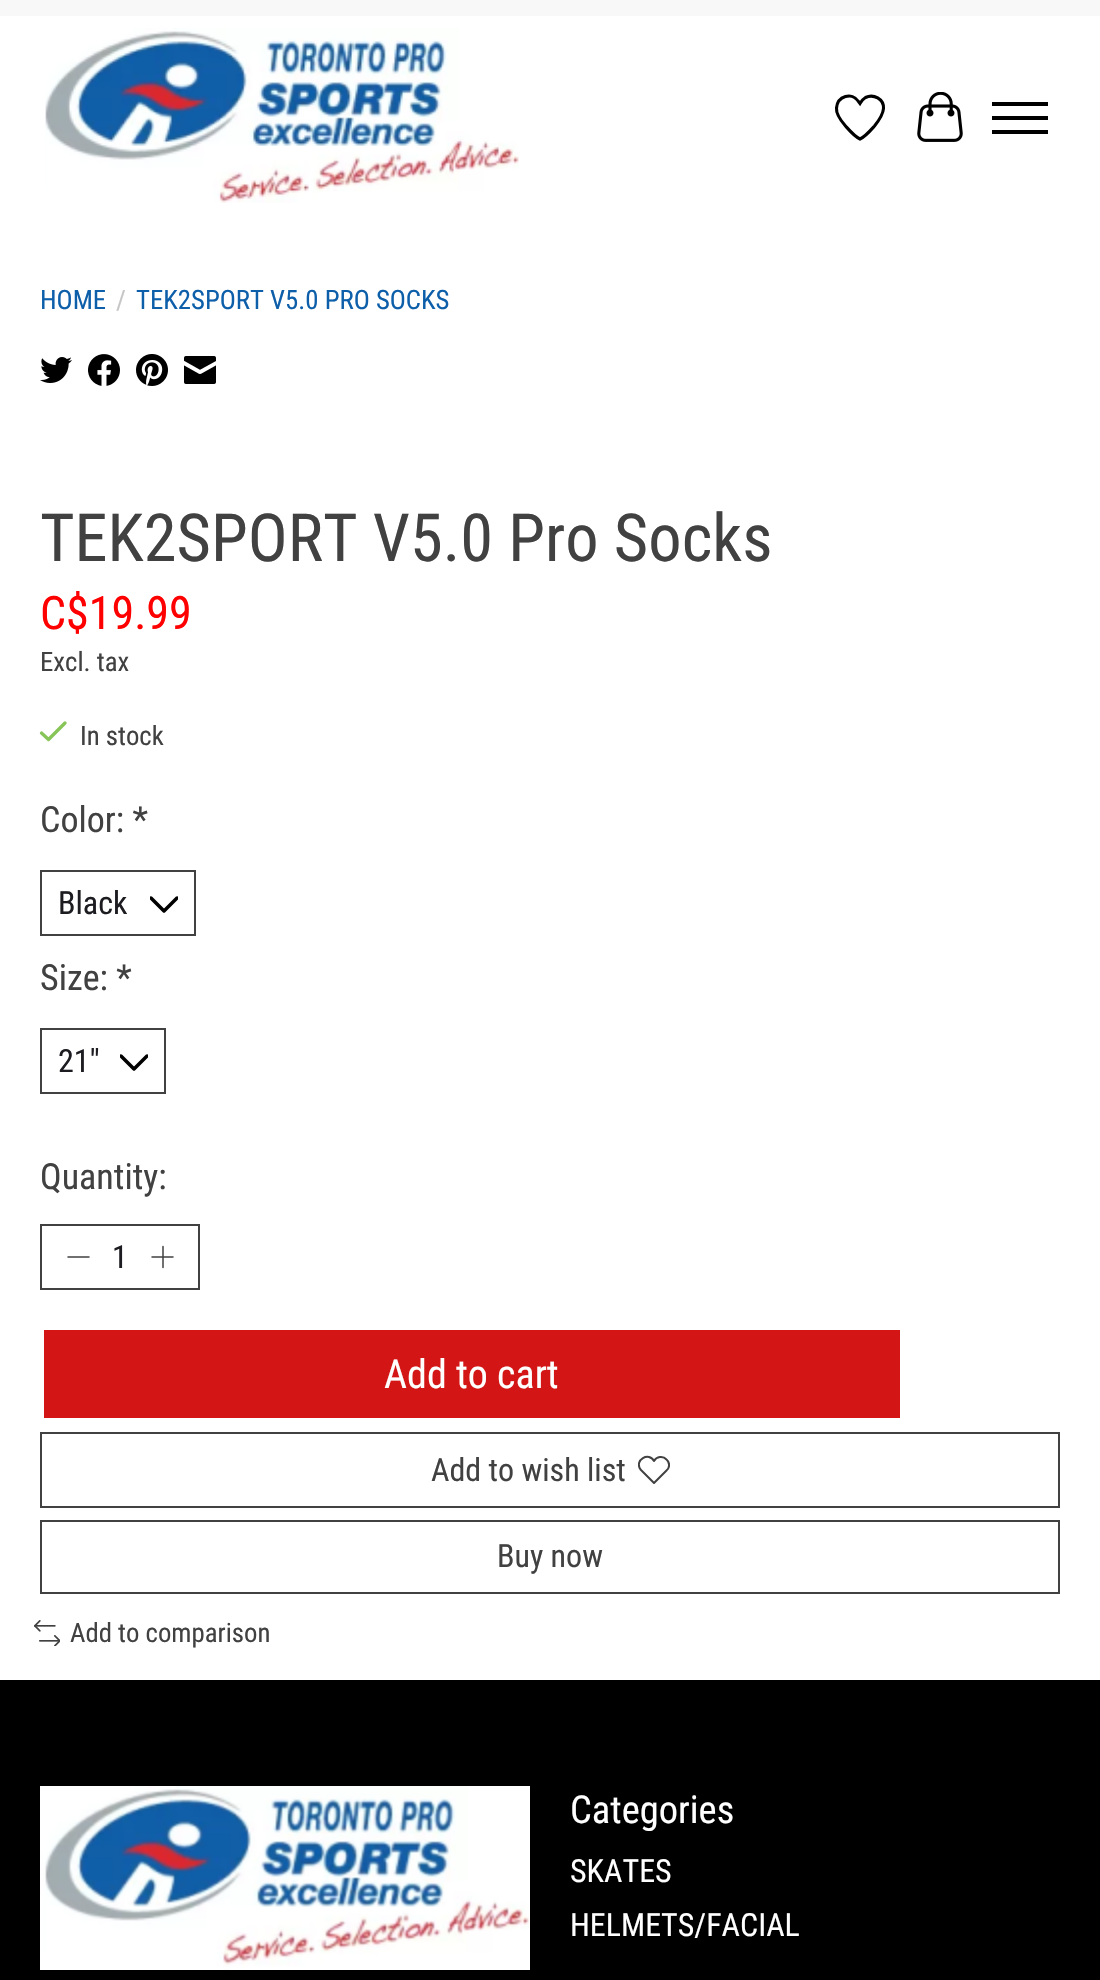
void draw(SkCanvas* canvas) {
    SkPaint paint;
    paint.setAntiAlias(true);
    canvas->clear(0xFFFFFFFF);
    paint.setColor(0xFFF8F8F8);
    canvas->drawRect(SkRect::MakeXYWH(0, 0, 1100, 16), paint);
    canvas->drawImageRect(SkImages::DeferredFromEncodedData(SkData::MakeFromFileName("img1.png")), SkRect::MakeXYWH(45, 28, 474, 175), SkSamplingOptions());
    paint.setStyle(SkPaint::kStroke_Style);
    paint.setStrokeWidth(3.1f);
    paint.setColor(0xFF000000);
    canvas->drawPath(SkPathBuilder().moveTo(858.5f, 101.5f).lineTo(860, 103.5f).cubicTo(861.5f, 101, 863, 99, 865.5f, 97.5f).cubicTo(873.5f, 93.5f, 884, 99, 883.5f, 108.5f).cubicTo(883, 115, 878.5f, 121, 874.5f, 126).cubicTo(870.5f, 130.5f, 865.5f, 136.5f, 860, 139).cubicTo(854.5f, 136.5f, 849.5f, 130.5f, 845.5f, 126).cubicTo(842, 122, 836, 113.5f, 836.5f, 108).cubicTo(837.5f, 96, 852, 91.5f, 858.5f, 101.5f).close().detach(), paint);
    canvas->drawImageRect(SkImages::DeferredFromEncodedData(SkData::MakeFromFileName("img2.png")), SkRect::MakeXYWH(917, 92, 46, 50), SkSamplingOptions());
    paint.setStyle(SkPaint::kFill_Style);
    canvas->drawRect(SkRect::MakeXYWH(992, 116, 56, 4), paint);
    canvas->drawRect(SkRect::MakeXYWH(992, 102, 56, 4), paint);
    canvas->drawRect(SkRect::MakeXYWH(992, 130, 56, 4), paint);
    SkFont font1(fontMgr->matchFamilyStyle("Roboto Condensed", SkFontStyle::Normal()), 26.75f);
    font1.setSubpixel(true);
    paint.setColor(0xFF0E5FAA);
    canvas->drawString("HOME", 40, 309, font1, paint);
    paint.setColor(0xFFC6C6C6);
    canvas->drawString("/", 116, 309, font1, paint);
    paint.setColor(0xFF0E5FAA);
    canvas->drawString("TEK2SPORT V5.0 PRO SOCKS", 136, 309, font1, paint);
    canvas->drawImageRect(SkImages::DeferredFromEncodedData(SkData::MakeFromFileName("img3.png")), SkRect::MakeXYWH(40, 357, 32, 26), SkSamplingOptions());
    canvas->drawImageRect(SkImages::DeferredFromEncodedData(SkData::MakeFromFileName("img4.png")), SkRect::MakeXYWH(88, 354, 32, 32), SkSamplingOptions());
    canvas->drawImageRect(SkImages::DeferredFromEncodedData(SkData::MakeFromFileName("img5.png")), SkRect::MakeXYWH(136, 354, 32, 32), SkSamplingOptions());
    canvas->drawImageRect(SkImages::DeferredFromEncodedData(SkData::MakeFromFileName("img6.png")), SkRect::MakeXYWH(184, 356, 32, 28), SkSamplingOptions());
    SkFont font2(fontMgr->matchFamilyStyle("Roboto Condensed", SkFontStyle::Normal()), 66.4f);
    font2.setSubpixel(true);
    paint.setColor(0xFF414141);
    canvas->drawString("TEK2SPORT V5.0 Pro Socks", 40, 561, font2, paint);
    SkFont font3(fontMgr->matchFamilyStyle("Roboto Condensed", SkFontStyle::Normal()), 46);
    font3.setSubpixel(true);
    paint.setColor(0xFFFF0000);
    canvas->drawString("C$19.99", 40, 629, font3, paint);
    paint.setColor(0xFF414141);
    canvas->drawString("Excl. tax", 40, 671, font1, paint);
    paint.setStyle(SkPaint::kStroke_Style);
    paint.setStrokeWidth(3.3f);
    paint.setStrokeCap(SkPaint::kRound_Cap);
    paint.setStrokeJoin(SkPaint::kRound_Join);
    paint.setColor(0xFF88C559);
    canvas->drawPath(SkPathBuilder().moveTo(41.5f, 733).lineTo(48.5f, 739.5f).lineTo(65, 723).detach(), paint);
    paint.setStyle(SkPaint::kFill_Style);
    paint.setColor(0xFF414141);
    canvas->drawString("In stock", 80, 745, font1, paint);
    SkFont font4(fontMgr->matchFamilyStyle("Roboto Condensed", SkFontStyle::Normal()), 36);
    font4.setSubpixel(true);
    canvas->drawString("Color: *", 40, 832, font4, paint);
    canvas->save();
    canvas->clipRect(SkRect::MakeXYWH(150, 890, 28, 28));
    paint.setStyle(SkPaint::kStroke_Style);
    paint.setStrokeWidth(3.5f);
    paint.setColor(0xFF000000);
    canvas->drawPath(SkPathBuilder().moveTo(177, 898).lineTo(164, 911).lineTo(151, 898).detach(), paint);
    canvas->restore();
    paint.setStrokeWidth(2);
    paint.setStrokeCap(SkPaint::kButt_Cap);
    paint.setStrokeJoin(SkPaint::kMiter_Join);
    paint.setColor(0xFF414141);
    canvas->drawRect(SkRect::MakeXYWH(41, 871, 154, 64), paint);
    SkFont font5(fontMgr->matchFamilyStyle("Roboto Condensed", SkFontStyle::Normal()), 32);
    font5.setSubpixel(true);
    paint.setStyle(SkPaint::kFill_Style);
    paint.setColor(0xFF1C1C21);
    canvas->drawString("Black", 58, 914, font5, paint);
    paint.setColor(0xFF414141);
    canvas->drawString("Size: *", 40, 990, font4, paint);
    canvas->save();
    canvas->clipRect(SkRect::MakeXYWH(120, 1048, 28, 28));
    paint.setStyle(SkPaint::kStroke_Style);
    paint.setStrokeWidth(3.5f);
    paint.setStrokeCap(SkPaint::kRound_Cap);
    paint.setStrokeJoin(SkPaint::kRound_Join);
    paint.setColor(0xFF000000);
    canvas->drawPath(SkPathBuilder().moveTo(147, 1056).lineTo(134, 1069).lineTo(121, 1056).detach(), paint);
    canvas->restore();
    paint.setStrokeWidth(2);
    paint.setStrokeCap(SkPaint::kButt_Cap);
    paint.setStrokeJoin(SkPaint::kMiter_Join);
    paint.setColor(0xFF414141);
    canvas->drawRect(SkRect::MakeXYWH(41, 1029, 124, 64), paint);
    paint.setStyle(SkPaint::kFill_Style);
    paint.setColor(0xFF1C1C21);
    canvas->drawString("21\"", 58, 1072, font5, paint);
    paint.setColor(0xFF414141);
    canvas->drawString("Quantity:", 40, 1189, font4, paint);
    paint.setStyle(SkPaint::kStroke_Style);
    canvas->drawRect(SkRect::MakeXYWH(41, 1225, 158, 64), paint);
    paint.setStrokeWidth(1.5f);
    paint.setStrokeCap(SkPaint::kRound_Cap);
    paint.setStrokeJoin(SkPaint::kRound_Join);
    canvas->drawPath(SkPathBuilder().moveTo(68, 1257).lineTo(89, 1257).detach(), paint);
    paint.setStyle(SkPaint::kFill_Style);
    paint.setColor(0xFF1C1C21);
    canvas->drawString("1", 112, 1268, font5, paint);
    paint.setStyle(SkPaint::kStroke_Style);
    paint.setColor(0xFF414141);
    canvas->drawPath(SkPathBuilder().moveTo(163, 1246.5f).lineTo(163, 1267.5f).moveTo(152, 1257).lineTo(173, 1257).detach(), paint);
    paint.setStyle(SkPaint::kFill_Style);
    paint.setColor(0xFFD31515);
    canvas->drawRect(SkRect::MakeXYWH(44, 1330, 856, 88), paint);
    SkFont font6(fontMgr->matchFamilyStyle("Roboto Condensed", SkFontStyle::Normal()), 40);
    font6.setSubpixel(true);
    paint.setColor(0xFFFFFFFF);
    canvas->drawString("Add to cart", 384, 1388, font6, paint);
    paint.setStyle(SkPaint::kStroke_Style);
    paint.setStrokeWidth(2);
    paint.setStrokeCap(SkPaint::kButt_Cap);
    paint.setStrokeJoin(SkPaint::kMiter_Join);
    paint.setColor(0xFF414141);
    canvas->drawRect(SkRect::MakeXYWH(41, 1433, 1018, 74), paint);
    paint.setStyle(SkPaint::kFill_Style);
    canvas->drawString("Add to wish list", 431, 1481, font5, paint);
    canvas->save();
    canvas->clipRect(SkRect::MakeXYWH(638, 1454, 32, 32));
    paint.setStyle(SkPaint::kStroke_Style);
    paint.setStrokeCap(SkPaint::kRound_Cap);
    paint.setStrokeJoin(SkPaint::kRound_Join);
    canvas->drawPath(SkPathBuilder().moveTo(666.5f, 1459.5f).cubicTo(663, 1455.5f, 656.5f, 1456.5f, 654, 1461).cubicTo(649, 1451.5f, 634, 1460, 640.5f, 1469.5f).lineTo(654, 1483).lineTo(666.5f, 1470.5f).cubicTo(670, 1467.5f, 670, 1462.5f, 666.5f, 1459.5f).close().detach(), paint);
    canvas->restore();
    paint.setStrokeCap(SkPaint::kButt_Cap);
    paint.setStrokeJoin(SkPaint::kMiter_Join);
    canvas->drawRect(SkRect::MakeXYWH(41, 1521, 1018, 72), paint);
    paint.setStyle(SkPaint::kFill_Style);
    canvas->drawString("Buy now", 497, 1567, font5, paint);
    canvas->drawImageRect(SkImages::DeferredFromEncodedData(SkData::MakeFromFileName("img7.png")), SkRect::MakeXYWH(34, 1620, 26, 26), SkSamplingOptions());
    canvas->drawString("Add to comparison", 70, 1642, font1, paint);
    paint.setColor(0xFF000000);
    canvas->drawRect(SkRect::MakeXYWH(0, 1680, 1100, 300), paint);
    canvas->drawImageRect(SkImages::DeferredFromEncodedData(SkData::MakeFromFileName("img8.png")), SkRect::MakeXYWH(40, 1786, 490, 184), SkSamplingOptions());
    SkFont font7(fontMgr->matchFamilyStyle("Roboto Condensed", SkFontStyle::Normal()), 38.5f);
    font7.setSubpixel(true);
    paint.setColor(0xFFFFFFFF);
    canvas->drawString("Categories", 570, 1823, font7, paint);
    canvas->drawString("SKATES", 570, 1882, font5, paint);
    canvas->drawString("HELMETS/FACIAL", 570, 1936, font5, paint);
}
